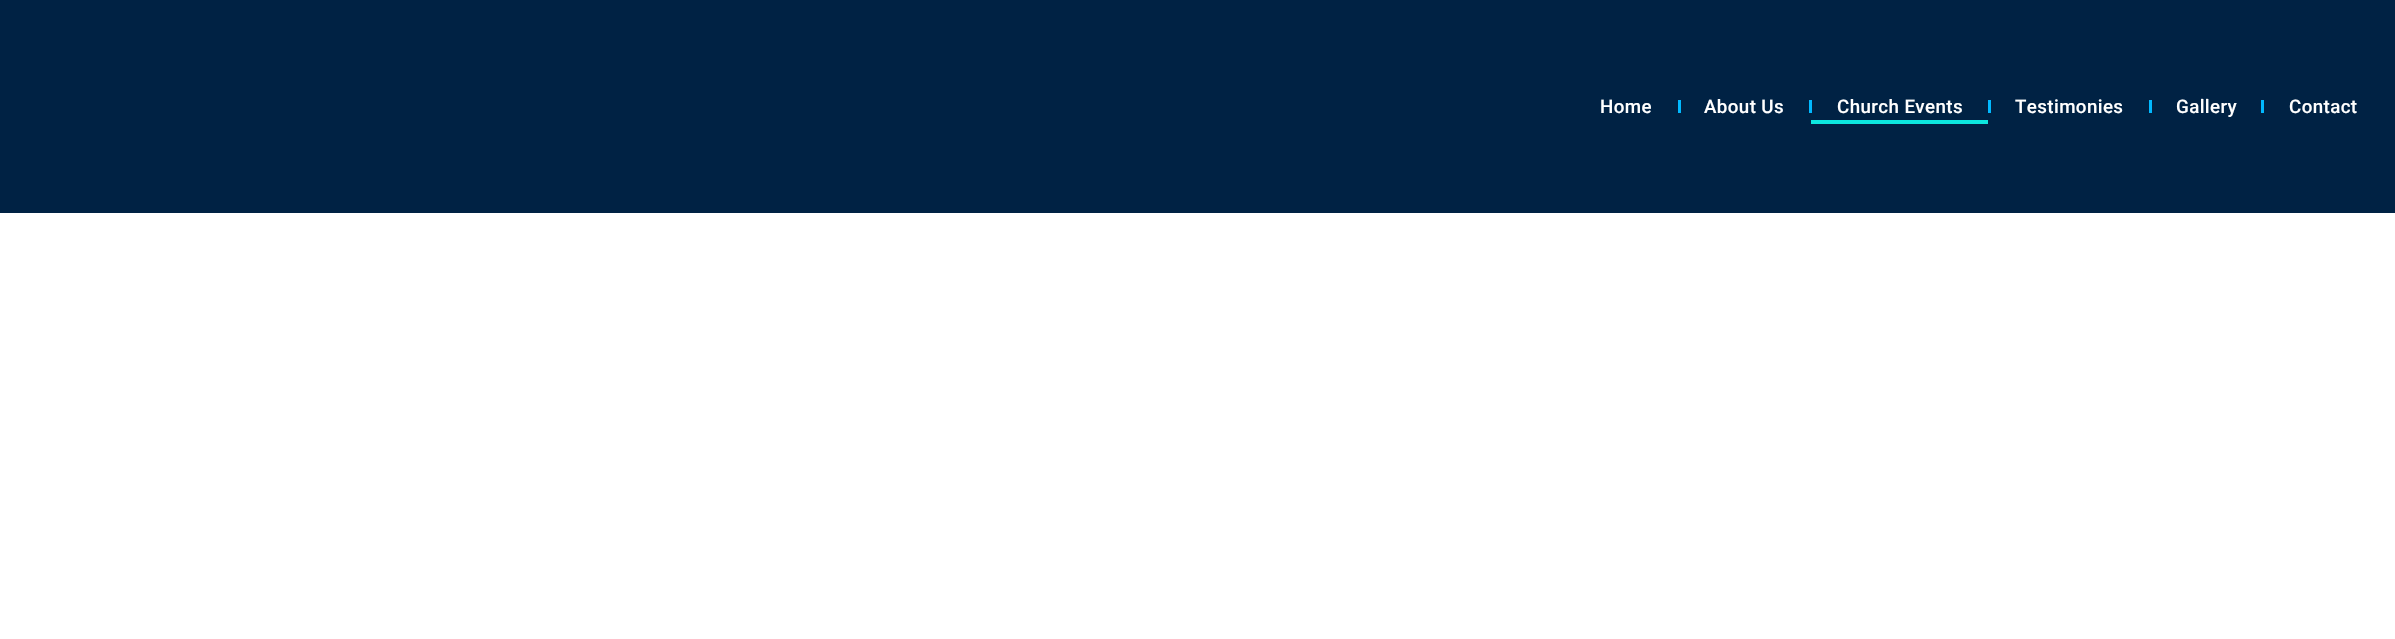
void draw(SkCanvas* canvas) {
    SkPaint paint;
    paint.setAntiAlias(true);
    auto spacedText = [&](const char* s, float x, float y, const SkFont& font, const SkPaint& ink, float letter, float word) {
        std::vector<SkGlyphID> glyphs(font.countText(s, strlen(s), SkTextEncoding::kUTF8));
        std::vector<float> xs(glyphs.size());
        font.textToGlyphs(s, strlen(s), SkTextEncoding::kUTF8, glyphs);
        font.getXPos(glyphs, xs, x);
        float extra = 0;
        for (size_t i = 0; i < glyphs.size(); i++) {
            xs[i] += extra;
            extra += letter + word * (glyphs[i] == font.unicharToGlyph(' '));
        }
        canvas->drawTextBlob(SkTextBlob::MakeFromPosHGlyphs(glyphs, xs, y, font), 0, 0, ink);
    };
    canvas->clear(0xFFFFFFFF);
    paint.setColor(0xFF002244);
    canvas->drawRect(SkRect::MakeXYWH(0, 0, 2395, 213), paint);
    SkFont font1(fontMgr->matchFamilyStyle("Roboto", SkFontStyle(500, SkFontStyle::kNormal_Width, SkFontStyle::kUpright_Slant)), 18.75f);
    font1.setSubpixel(true);
    paint.setColor(0xFFFFFFFF);
    spacedText("Home", 1600, 113, font1, paint, 0.4f, 0);
    paint.setColor(0xFF01B9FF);
    canvas->drawRect(SkRect::MakeXYWH(1678, 100, 3, 13), paint);
    paint.setColor(0xFFFFFFFF);
    spacedText("About Us", 1704, 113, font1, paint, 0.4f, 0);
    paint.setColor(0xFF01B9FF);
    canvas->drawRect(SkRect::MakeXYWH(1809, 100, 3, 13), paint);
    paint.setColor(0xFFFFFFFF);
    spacedText("Church Events", 1837, 113, font1, paint, 0.4f, 0);
    paint.setColor(0xFF0DE7DF);
    canvas->drawRect(SkRect::MakeXYWH(1811, 120, 177, 4), paint);
    paint.setColor(0xFF01B9FF);
    canvas->drawRect(SkRect::MakeXYWH(1988, 100, 3, 13), paint);
    paint.setColor(0xFFFFFFFF);
    spacedText("Testimonies", 2015, 113, font1, paint, 0.4f, 0);
    paint.setColor(0xFF01B9FF);
    canvas->drawRect(SkRect::MakeXYWH(2149, 100, 3, 13), paint);
    paint.setColor(0xFFFFFFFF);
    spacedText("Gallery", 2176, 113, font1, paint, 0.4f, 0);
    paint.setColor(0xFF01B9FF);
    canvas->drawRect(SkRect::MakeXYWH(2261, 100, 3, 13), paint);
    paint.setColor(0xFFFFFFFF);
    spacedText("Contact", 2289, 113, font1, paint, 0.4f, 0);
}
